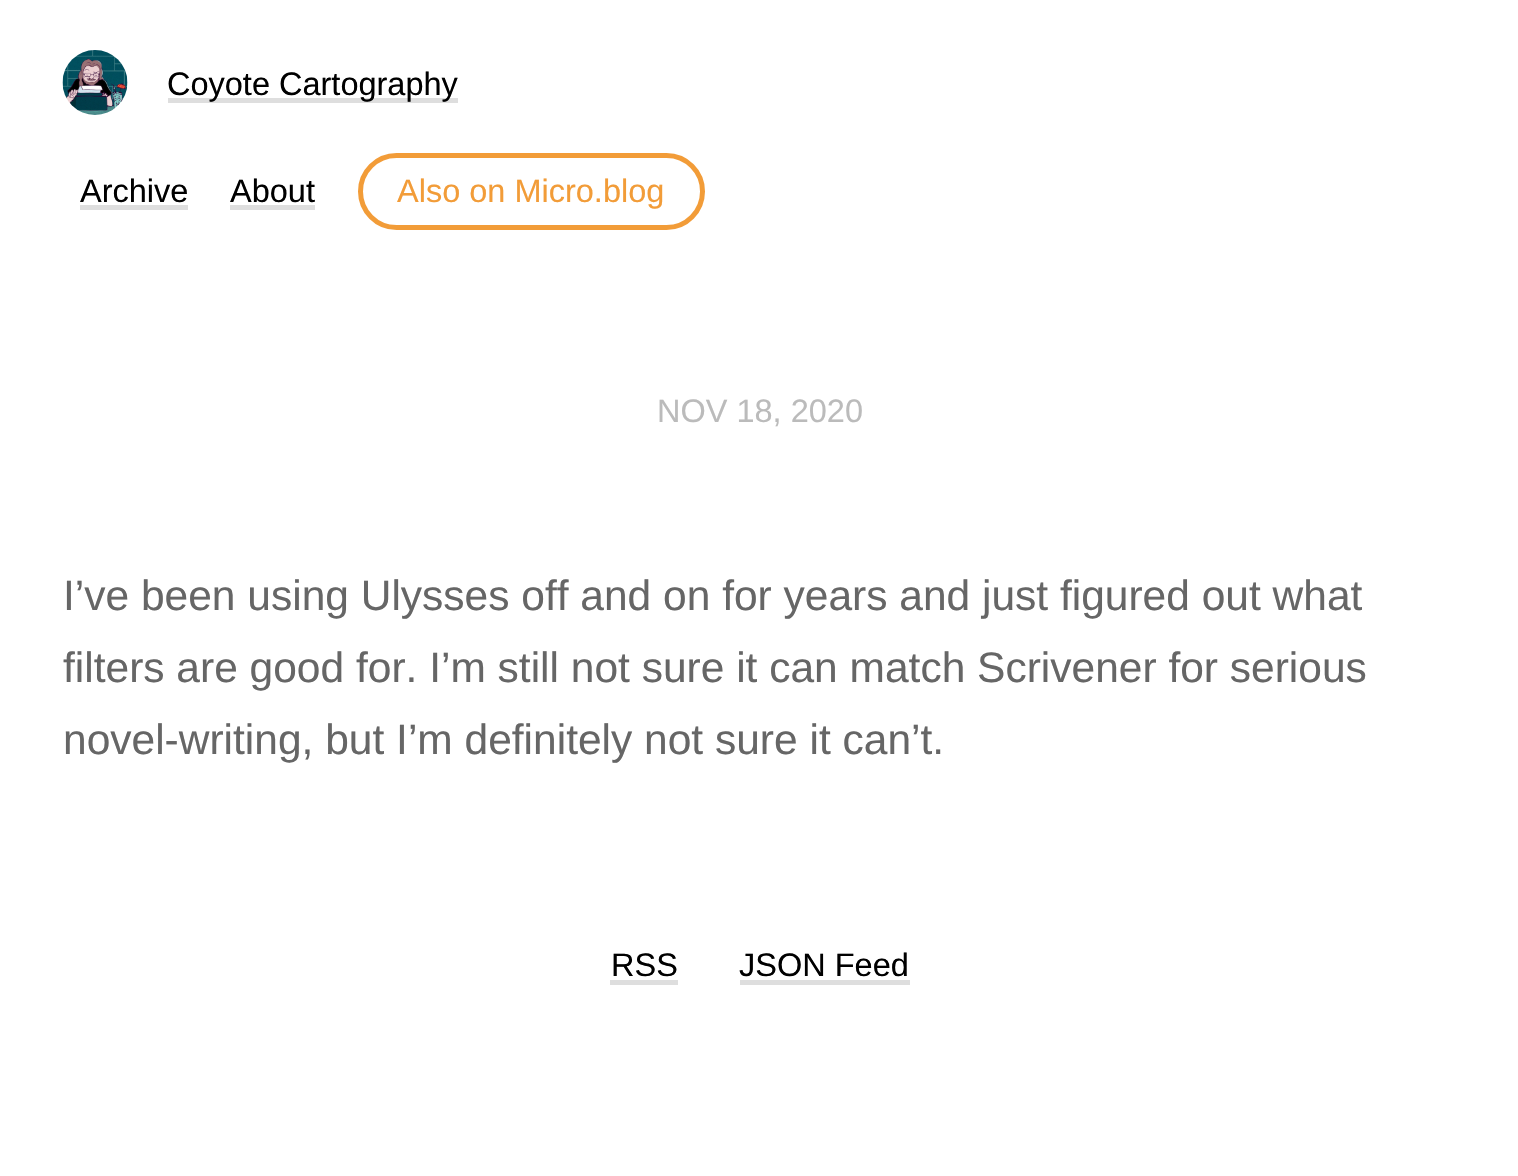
void draw(SkCanvas* canvas) {
    SkPaint paint;
    paint.setAntiAlias(true);
    canvas->clear(0xFFFFFFFF);
    canvas->drawImageRect(SkImages::DeferredFromEncodedData(SkData::MakeFromFileName("img1.png")), SkRect::MakeXYWH(62, 50, 66, 65), SkSamplingOptions());
    paint.setColor(0xFFDEDEDE);
    canvas->drawRect(SkRect::MakeXYWH(168, 98, 290, 5), paint);
    SkFont font1(fontMgr->matchFamilyStyle("Liberation Sans", SkFontStyle::Normal()), 32.5f);
    font1.setSubpixel(true);
    paint.setColor(0xFF000000);
    canvas->drawString("Coyote Cartography", 167, 95, font1, paint);
    canvas->drawString("Archive", 80, 202, font1, paint);
    paint.setColor(0xFFDEDEDE);
    canvas->drawRect(SkRect::MakeXYWH(80, 205, 108, 5), paint);
    paint.setColor(0xFF000000);
    canvas->drawString("About", 230, 202, font1, paint);
    paint.setColor(0xFFDEDEDE);
    canvas->drawRect(SkRect::MakeXYWH(230, 205, 85, 5), paint);
    paint.setStyle(SkPaint::kStroke_Style);
    paint.setStrokeWidth(5);
    paint.setColor(0xFFF29C38);
    canvas->drawRoundRect(SkRect::MakeXYWH(360.5f, 155.5f, 342, 72), 36, 36, paint);
    paint.setStyle(SkPaint::kFill_Style);
    canvas->drawString("Also on Micro.blog", 397, 202, font1, paint);
    paint.setColor(0xFFBBBBBB);
    canvas->drawString("NOV 18, 2020", 657, 422, font1, paint);
    SkFont font2(fontMgr->matchFamilyStyle("Liberation Sans", SkFontStyle::Normal()), 42.5f);
    font2.setSubpixel(true);
    paint.setColor(0xFF666666);
    canvas->drawString("I’ve been using Ulysses off and on for years and just figured out what", 63, 610, font2, paint);
    canvas->drawString("filters are good for. I’m still not sure it can match Scrivener for serious", 63, 682, font2, paint);
    canvas->drawString("novel-writing, but I’m definitely not sure it can’t.", 63, 754, font2, paint);
    paint.setColor(0xFF000000);
    canvas->drawString("RSS", 611, 976, font1, paint);
    paint.setColor(0xFFDEDEDE);
    canvas->drawRect(SkRect::MakeXYWH(610, 980, 68, 5), paint);
    paint.setColor(0xFF000000);
    canvas->drawString("JSON Feed", 739, 976, font1, paint);
    paint.setColor(0xFFDEDEDE);
    canvas->drawRect(SkRect::MakeXYWH(740, 980, 170, 5), paint);
}
